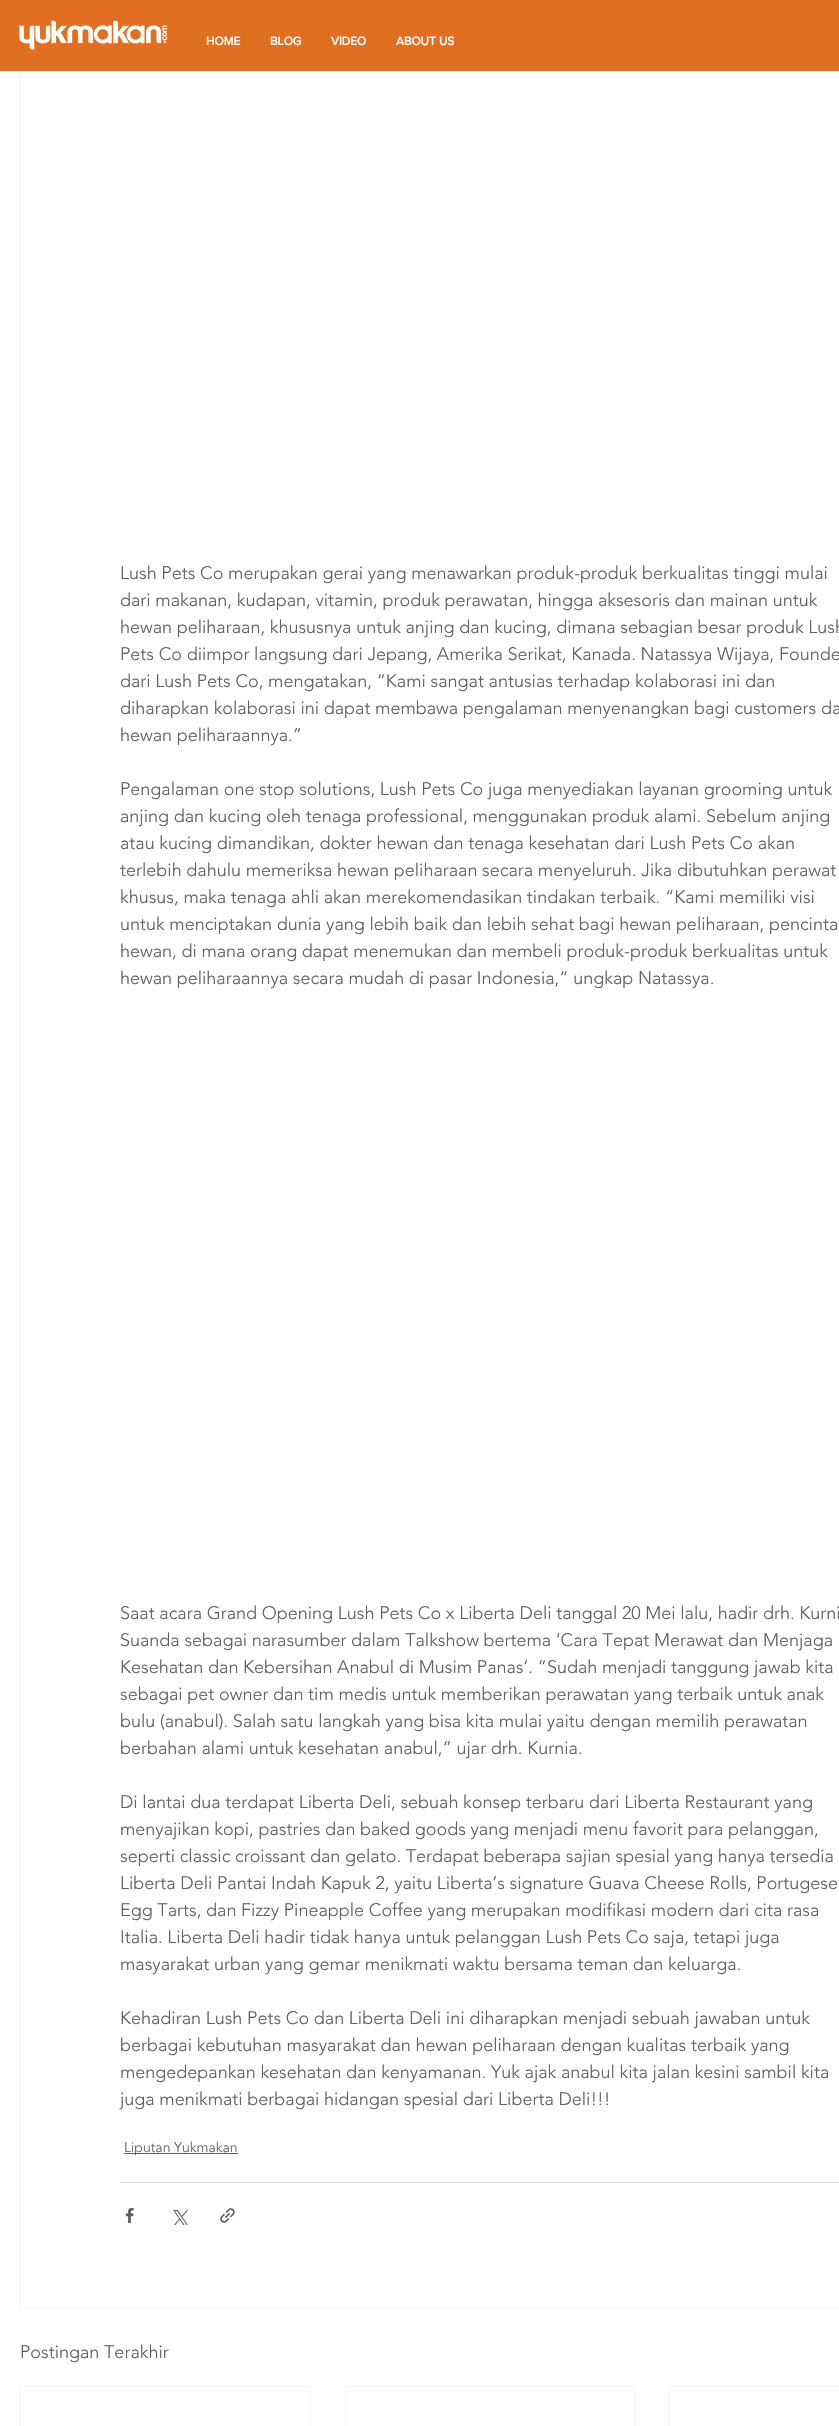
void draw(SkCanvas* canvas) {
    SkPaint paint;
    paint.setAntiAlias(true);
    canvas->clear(0xFFFFFFFF);
    paint.setStyle(SkPaint::kStroke_Style);
    paint.setStrokeWidth(1);
    paint.setColor(0xFFF5F5F5);
    canvas->drawRect(SkRect::MakeXYWH(20.5f, -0.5f, 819, 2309), paint);
    paint.setStyle(SkPaint::kFill_Style);
    paint.setColor(0xFFE16F21);
    canvas->drawRect(SkRect::MakeXYWH(0, 0, 839, 71), paint);
    canvas->drawImageRect(SkImages::DeferredFromEncodedData(SkData::MakeFromFileName("img1.png")), SkRect::MakeXYWH(19, 20, 149, 30), SkSamplingOptions());
    SkFont font1(fontMgr->matchFamilyStyle("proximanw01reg", SkFontStyle::Bold()), 12);
    font1.setSubpixel(true);
    paint.setColor(0xFFFFFFFF);
    canvas->drawString("HOME", 206, 45, font1, paint);
    canvas->drawString("BLOG", 270, 45, font1, paint);
    canvas->drawString("VIDEO", 331, 45, font1, paint);
    canvas->drawString("ABOUT US", 396, 45, font1, paint);
    SkFont font2(fontMgr->matchFamilyStyle("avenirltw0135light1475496", SkFontStyle(300, SkFontStyle::kNormal_Width, SkFontStyle::kUpright_Slant)), 18);
    font2.setSubpixel(true);
    paint.setColor(0xFF605E5E);
    canvas->drawString("Lush Pets Co merupakan gerai yang menawarkan produk-produk berkualitas tinggi mulai", 120, 579, font2, paint);
    canvas->drawString("dari makanan, kudapan, vitamin, produk perawatan, hingga aksesoris dan mainan untuk", 120, 606, font2, paint);
    canvas->drawString("hewan peliharaan, khususnya untuk anjing dan kucing, dimana sebagian besar produk Lush", 120, 633, font2, paint);
    canvas->drawString("Pets Co diimpor langsung dari Jepang, Amerika Serikat, Kanada. Natassya Wijaya, Founde", 120, 660, font2, paint);
    canvas->drawString("dari Lush Pets Co, mengatakan, “Kami sangat antusias terhadap kolaborasi ini dan", 120, 687, font2, paint);
    canvas->drawString("diharapkan kolaborasi ini dapat membawa pengalaman menyenangkan bagi customers da", 120, 714, font2, paint);
    canvas->drawString("hewan peliharaannya.”", 120, 741, font2, paint);
    canvas->drawString("Pengalaman one stop solutions, Lush Pets Co juga menyediakan layanan grooming untuk", 120, 795, font2, paint);
    canvas->drawString("anjing dan kucing oleh tenaga professional, menggunakan produk alami. Sebelum anjing", 120, 822, font2, paint);
    canvas->drawString("atau kucing dimandikan, dokter hewan dan tenaga kesehatan dari Lush Pets Co akan", 120, 849, font2, paint);
    canvas->drawString("terlebih dahulu memeriksa hewan peliharaan secara menyeluruh. Jika dibutuhkan perawat", 120, 876, font2, paint);
    canvas->drawString("khusus, maka tenaga ahli akan merekomendasikan tindakan terbaik. “Kami memiliki visi", 120, 903, font2, paint);
    canvas->drawString("untuk menciptakan dunia yang lebih baik dan lebih sehat bagi hewan peliharaan, pencinta", 120, 930, font2, paint);
    canvas->drawString("hewan, di mana orang dapat menemukan dan membeli produk-produk berkualitas untuk", 120, 957, font2, paint);
    canvas->drawString("hewan peliharaannya secara mudah di pasar Indonesia,” ungkap Natassya.", 120, 984, font2, paint);
    canvas->drawString("Saat acara Grand Opening Lush Pets Co x Liberta Deli tanggal 20 Mei lalu, hadir drh. Kurni", 120, 1619, font2, paint);
    canvas->drawString("Suanda sebagai narasumber dalam Talkshow bertema ‘Cara Tepat Merawat dan Menjaga", 120, 1646, font2, paint);
    canvas->drawString("Kesehatan dan Kebersihan Anabul di Musim Panas’. “Sudah menjadi tanggung jawab kita", 120, 1673, font2, paint);
    canvas->drawString("sebagai pet owner dan tim medis untuk memberikan perawatan yang terbaik untuk anak", 120, 1700, font2, paint);
    canvas->drawString("bulu (anabul). Salah satu langkah yang bisa kita mulai yaitu dengan memilih perawatan", 120, 1727, font2, paint);
    canvas->drawString("berbahan alami untuk kesehatan anabul,” ujar drh. Kurnia.", 120, 1754, font2, paint);
    canvas->drawString("Di lantai dua terdapat Liberta Deli, sebuah konsep terbaru dari Liberta Restaurant yang", 120, 1808, font2, paint);
    canvas->drawString("menyajikan kopi, pastries dan baked goods yang menjadi menu favorit para pelanggan,", 120, 1835, font2, paint);
    canvas->drawString("seperti classic croissant dan gelato. Terdapat beberapa sajian spesial yang hanya tersedia", 120, 1862, font2, paint);
    canvas->drawString("Liberta Deli Pantai Indah Kapuk 2, yaitu Liberta’s signature Guava Cheese Rolls, Portugese", 120, 1889, font2, paint);
    canvas->drawString("Egg Tarts, dan Fizzy Pineapple Coffee yang merupakan modifikasi modern dari cita rasa", 120, 1916, font2, paint);
    canvas->drawString("Italia. Liberta Deli hadir tidak hanya untuk pelanggan Lush Pets Co saja, tetapi juga", 120, 1943, font2, paint);
    canvas->drawString("masyarakat urban yang gemar menikmati waktu bersama teman dan keluarga.", 120, 1970, font2, paint);
    canvas->drawString("Kehadiran Lush Pets Co dan Liberta Deli ini diharapkan menjadi sebuah jawaban untuk", 120, 2024, font2, paint);
    canvas->drawString("berbagai kebutuhan masyarakat dan hewan peliharaan dengan kualitas terbaik yang", 120, 2051, font2, paint);
    canvas->drawString("mengedepankan kesehatan dan kenyamanan. Yuk ajak anabul kita jalan kesini sambil kita", 120, 2078, font2, paint);
    canvas->drawString("juga menikmati berbagai hidangan spesial dari Liberta Deli!!!", 120, 2105, font2, paint);
    canvas->drawRect(SkRect::MakeXYWH(124, 2153, 114, 1), paint);
    SkFont font3(fontMgr->matchFamilyStyle("avenirltw0135light1475496", SkFontStyle(300, SkFontStyle::kNormal_Width, SkFontStyle::kUpright_Slant)), 14);
    font3.setSubpixel(true);
    canvas->drawString("Liputan Yukmakan", 124, 2152, font3, paint);
    paint.setColor(0xFFDFDFDF);
    canvas->drawRect(SkRect::MakeXYWH(120, 2182, 719, 1), paint);
    canvas->drawImageRect(SkImages::DeferredFromEncodedData(SkData::MakeFromFileName("img2.png")), SkRect::MakeXYWH(125, 2208, 9, 15), SkSamplingOptions());
    canvas->drawImageRect(SkImages::DeferredFromEncodedData(SkData::MakeFromFileName("img3.png")), SkRect::MakeXYWH(173, 2210, 15, 15), SkSamplingOptions());
    canvas->drawImageRect(SkImages::DeferredFromEncodedData(SkData::MakeFromFileName("img4.png")), SkRect::MakeXYWH(220, 2208, 15, 15), SkSamplingOptions());
    paint.setColor(0xFF605E5E);
    canvas->drawString("Postingan Terakhir", 20, 2358, font2, paint);
    paint.setStyle(SkPaint::kStroke_Style);
    paint.setColor(0xFFF5F5F5);
    canvas->drawRect(SkRect::MakeXYWH(20.5f, 2386.5f, 290, 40), paint);
    canvas->drawRect(SkRect::MakeXYWH(345.5f, 2386.5f, 289, 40), paint);
    canvas->drawRect(SkRect::MakeXYWH(669.5f, 2386.5f, 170, 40), paint);
}
